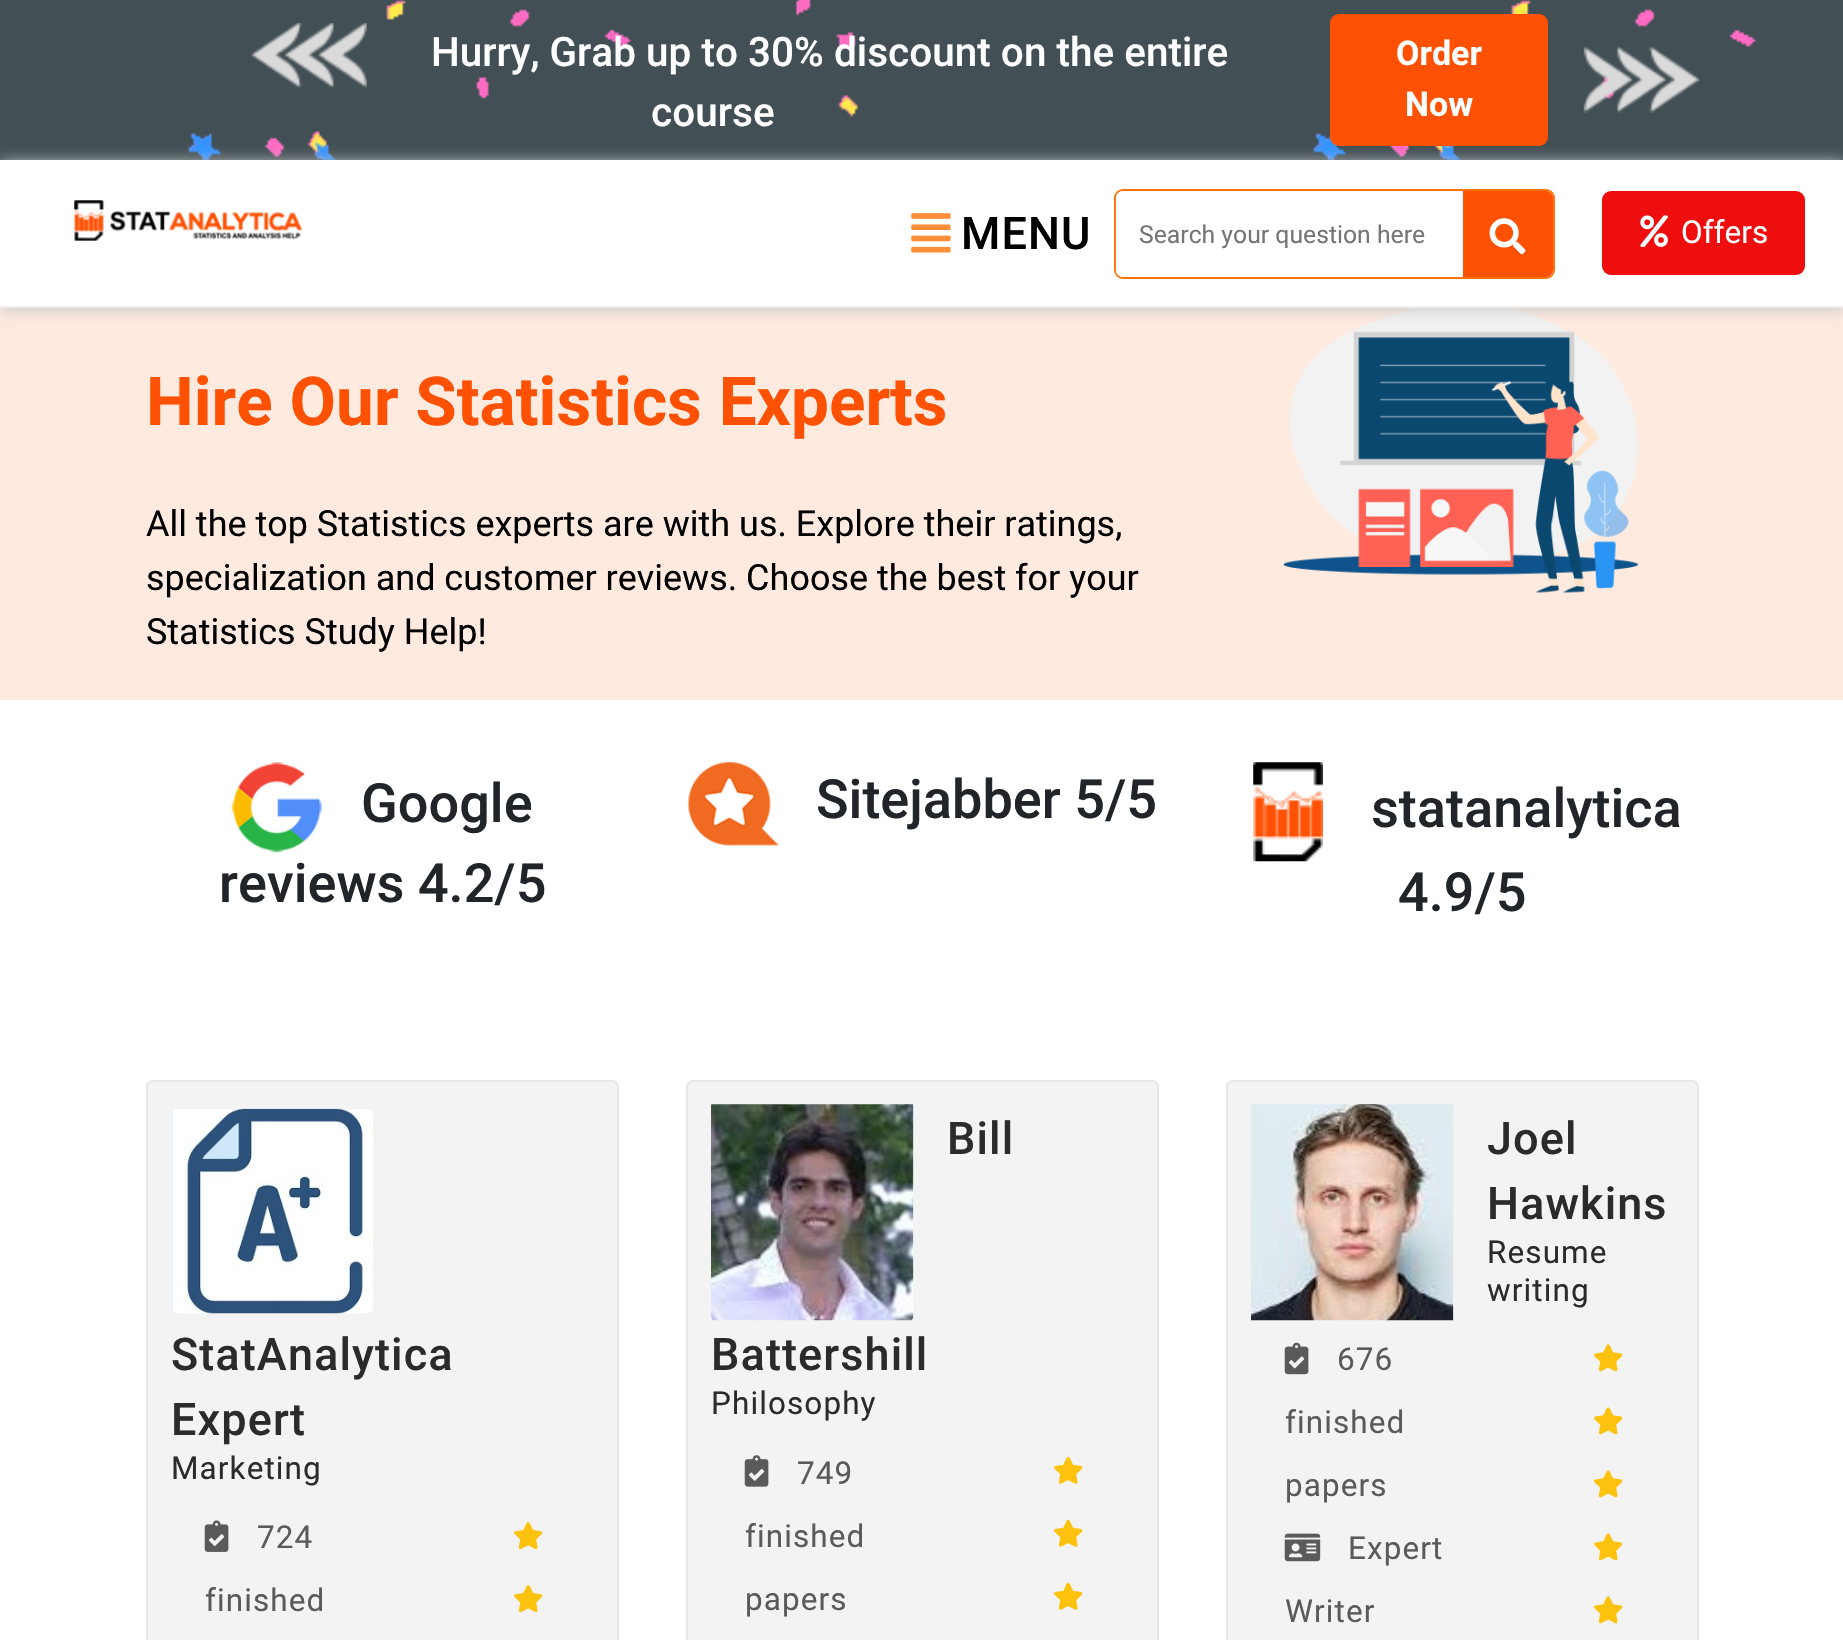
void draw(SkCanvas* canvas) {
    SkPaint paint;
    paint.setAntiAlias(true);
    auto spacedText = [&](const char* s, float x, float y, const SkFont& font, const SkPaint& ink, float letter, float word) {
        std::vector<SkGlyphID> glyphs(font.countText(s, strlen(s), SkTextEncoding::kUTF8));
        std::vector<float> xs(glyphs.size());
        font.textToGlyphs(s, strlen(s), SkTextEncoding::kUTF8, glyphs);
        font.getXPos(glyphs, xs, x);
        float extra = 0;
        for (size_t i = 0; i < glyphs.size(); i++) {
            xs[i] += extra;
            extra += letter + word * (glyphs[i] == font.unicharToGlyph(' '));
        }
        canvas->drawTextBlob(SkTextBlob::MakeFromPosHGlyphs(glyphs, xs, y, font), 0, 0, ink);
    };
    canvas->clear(0xFFFFFFFF);
    paint.setColor(0xFF424F54);
    canvas->drawRect(SkRect::MakeXYWH(0, 0, 1843, 160), paint);
    canvas->drawImageRect(SkImages::DeferredFromEncodedData(SkData::MakeFromFileName("img1.png")), SkRect::MakeXYWH(188, 0, 1568, 160), SkSamplingOptions());
    canvas->drawImageRect(SkImages::DeferredFromEncodedData(SkData::MakeFromFileName("img2.png")), SkRect::MakeXYWH(251, 23, 116, 65), SkSamplingOptions());
    SkFont font1(fontMgr->matchFamilyStyle("Roboto", SkFontStyle(500, SkFontStyle::kNormal_Width, SkFontStyle::kUpright_Slant)), 40.5f);
    font1.setSubpixel(true);
    paint.setColor(0xFFFFFFFF);
    canvas->drawString("Hurry, Grab up to 30% discount on the entire", 431, 66, font1, paint);
    canvas->drawString("course", 651, 126, font1, paint);
    paint.setColor(0xFFFFEAE0);
    canvas->drawRect(SkRect::MakeXYWH(0, 308, 1843, 392), paint);
    canvas->drawImageRect(SkImages::DeferredFromEncodedData(SkData::MakeFromFileName("img8.png")), SkRect::MakeXYWH(1283, 308, 356, 285), SkSamplingOptions());
    canvas->save();
    canvas->clipPath(SkPathBuilder(SkPathFillType::kEvenOdd).moveTo(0, 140).lineTo(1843, 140).lineTo(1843, 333).lineTo(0, 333).close().moveTo(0, 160).lineTo(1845, 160).lineTo(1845, 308).lineTo(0, 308).close().detach(), true);
    paint.setColor(0xFFCCCCCC);
    paint.setMaskFilter(SkMaskFilter::MakeBlur(kNormal_SkBlurStyle, 7));
    canvas->drawRect(SkRect::MakeXYWH(0, 162, 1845, 149), paint);
    paint.setMaskFilter(nullptr);
    canvas->restore();
    paint.setColor(0xFFFF5104);
    canvas->drawRoundRect(SkRect::MakeXYWH(1330, 14, 218, 132), 9, 9, paint);
    SkFont font2(fontMgr->matchFamilyStyle("Roboto", SkFontStyle::Bold()), 34);
    font2.setSubpixel(true);
    paint.setColor(0xFFFFFFFF);
    canvas->drawString("Order", 1396, 65, font2, paint);
    canvas->drawString("Now", 1405, 116, font2, paint);
    canvas->drawImageRect(SkImages::DeferredFromEncodedData(SkData::MakeFromFileName("img3.png")), SkRect::MakeXYWH(1583, 46, 116, 67), SkSamplingOptions());
    paint.setColor(0xFFEEEEEE);
    canvas->drawRect(SkRect::MakeXYWH(0, 306, 1843, 2), paint);
    canvas->drawImageRect(SkImages::DeferredFromEncodedData(SkData::MakeFromFileName("img4.png")), SkRect::MakeXYWH(74, 200, 228, 41), SkSamplingOptions());
    canvas->drawImageRect(SkImages::DeferredFromEncodedData(SkData::MakeFromFileName("img5.png")), SkRect::MakeXYWH(911, 213, 40, 40), SkSamplingOptions());
    SkFont font3(fontMgr->matchFamilyStyle("Roboto", SkFontStyle(500, SkFontStyle::kNormal_Width, SkFontStyle::kUpright_Slant)), 45);
    font3.setSubpixel(true);
    paint.setColor(0xFF000000);
    spacedText("MENU", 961, 249, font3, paint, 1.1f, 0);
    paint.setStyle(SkPaint::kStroke_Style);
    paint.setStrokeWidth(2);
    paint.setColor(0xFFFF7206);
    canvas->drawRoundRect(SkRect::MakeXYWH(1115, 190, 439, 88), 8, 8, paint);
    paint.setStyle(SkPaint::kFill_Style);
    paint.setColor(0xFFFFFFFF);
    canvas->drawRoundRect(SkRect::MakeXYWH(1116, 191, 437, 86), 7, 7, paint);
    SkFont font4(fontMgr->matchFamilyStyle("Roboto", SkFontStyle::Normal()), 24.75f);
    font4.setSubpixel(true);
    paint.setColor(0xFF757575);
    canvas->drawString("Search your question here", 1139, 243, font4, paint);
    paint.setColor(0xFFFF5104);
    canvas->drawPath(SkPathBuilder().moveTo(1463, 191).lineTo(1546, 191).cubicTo(1550, 191, 1553, 194, 1553, 198).lineTo(1553, 270).cubicTo(1553, 274, 1550, 277, 1546, 277).lineTo(1463, 277).close().detach(), paint);
    canvas->drawImageRect(SkImages::DeferredFromEncodedData(SkData::MakeFromFileName("img6.png")), SkRect::MakeXYWH(1489, 218, 37, 37), SkSamplingOptions());
    paint.setColor(0xFFEF0E0E);
    canvas->drawRoundRect(SkRect::MakeXYWH(1602, 191, 203, 84), 9, 9, paint);
    canvas->drawImageRect(SkImages::DeferredFromEncodedData(SkData::MakeFromFileName("img7.png")), SkRect::MakeXYWH(1640, 215, 28, 32), SkSamplingOptions());
    SkFont font5(fontMgr->matchFamilyStyle("Roboto", SkFontStyle::Normal()), 31.5f);
    font5.setSubpixel(true);
    paint.setColor(0xFFFFFFFF);
    canvas->drawString("Offers", 1681, 243, font5, paint);
    SkFont font6(fontMgr->matchFamilyStyle("Roboto", SkFontStyle::Bold()), 67.5f);
    font6.setSubpixel(true);
    paint.setColor(0xFFFF5104);
    canvas->drawString("Hire Our Statistics Experts", 146, 425, font6, paint);
    SkFont font7(fontMgr->matchFamilyStyle("Roboto", SkFontStyle::Normal()), 36);
    font7.setSubpixel(true);
    paint.setColor(0xFF000000);
    canvas->drawString("All the top Statistics experts are with us. Explore their ratings,", 146, 536, font7, paint);
    canvas->drawString("specialization and customer reviews. Choose the best for your", 146, 590, font7, paint);
    canvas->drawString("Statistics Study Help!", 146, 644, font7, paint);
    canvas->drawImageRect(SkImages::DeferredFromEncodedData(SkData::MakeFromFileName("img9.png")), SkRect::MakeXYWH(231, 762, 91, 91), SkSamplingOptions());
    SkFont font8(fontMgr->matchFamilyStyle("Roboto", SkFontStyle(500, SkFontStyle::kNormal_Width, SkFontStyle::kUpright_Slant)), 54);
    font8.setSubpixel(true);
    paint.setColor(0xFF212529);
    canvas->drawString("Google", 361, 822, font8, paint);
    canvas->drawString("reviews 4.2/5", 219, 902, font8, paint);
    canvas->drawImageRect(SkImages::DeferredFromEncodedData(SkData::MakeFromFileName("img10.png")), SkRect::MakeXYWH(688, 762, 91, 84), SkSamplingOptions());
    canvas->drawString("Sitejabber 5/5", 816, 818, font8, paint);
    canvas->drawImageRect(SkImages::DeferredFromEncodedData(SkData::MakeFromFileName("img11.png")), SkRect::MakeXYWH(1253, 762, 70, 100), SkSamplingOptions());
    canvas->drawString("statanalytica", 1371, 827, font8, paint);
    canvas->drawString("4.9/5", 1398, 911, font8, paint);
    paint.setColor(0xFFF3F3F3);
    canvas->drawRoundRect(SkRect::MakeXYWH(146, 1080, 473, 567), 7, 7, paint);
    paint.setStyle(SkPaint::kStroke_Style);
    paint.setColor(0x57CCCCCC);
    canvas->drawRoundRect(SkRect::MakeXYWH(147, 1081, 471, 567), 6, 6, paint);
    canvas->drawImageRect(SkImages::DeferredFromEncodedData(SkData::MakeFromFileName("img12.png")), SkRect::MakeXYWH(171, 1108, 202, 206), SkSamplingOptions());
    paint.setStyle(SkPaint::kFill_Style);
    paint.setColor(0xFF2B2B2B);
    spacedText("StatAnalytica", 171, 1370, font3, paint, 1.1f, 0);
    spacedText("Expert", 171, 1435, font3, paint, 1.1f, 0);
    spacedText("Marketing", 171, 1479, font5, paint, 1.1f, 0);
    canvas->drawImageRect(SkImages::DeferredFromEncodedData(SkData::MakeFromFileName("img13.png")), SkRect::MakeXYWH(204, 1520, 25, 32), SkSamplingOptions());
    paint.setColor(0xFF5A5A5A);
    spacedText("724", 257, 1548, font5, paint, 1.1f, 0);
    spacedText("finished", 205, 1611, font5, paint, 1.1f, 0);
    canvas->drawImageRect(SkImages::DeferredFromEncodedData(SkData::MakeFromFileName("img14.png")), SkRect::MakeXYWH(514, 1522, 29, 28), SkSamplingOptions());
    canvas->drawImageRect(SkImages::DeferredFromEncodedData(SkData::MakeFromFileName("img14.png")), SkRect::MakeXYWH(514, 1585, 29, 28), SkSamplingOptions());
    paint.setColor(0xFFF3F3F3);
    canvas->drawRoundRect(SkRect::MakeXYWH(686, 1080, 473, 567), 7, 7, paint);
    paint.setStyle(SkPaint::kStroke_Style);
    paint.setColor(0x57CCCCCC);
    canvas->drawRoundRect(SkRect::MakeXYWH(687, 1081, 471, 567), 6, 6, paint);
    canvas->drawImageRect(SkImages::DeferredFromEncodedData(SkData::MakeFromFileName("img15.png")), SkRect::MakeXYWH(711, 1104, 203, 217), SkSamplingOptions());
    paint.setStyle(SkPaint::kFill_Style);
    paint.setColor(0xFF2B2B2B);
    spacedText("Bill", 947, 1154, font3, paint, 1.1f, 0);
    spacedText("Battershill", 711, 1370, font3, paint, 1.1f, 0);
    spacedText("Philosophy", 711, 1414, font5, paint, 1.1f, 0);
    canvas->drawImageRect(SkImages::DeferredFromEncodedData(SkData::MakeFromFileName("img16.png")), SkRect::MakeXYWH(744, 1455, 25, 32), SkSamplingOptions());
    paint.setColor(0xFF5A5A5A);
    spacedText("749", 797, 1484, font5, paint, 1.1f, 0);
    spacedText("finished", 745, 1547, font5, paint, 1.1f, 0);
    spacedText("papers", 745, 1610, font5, paint, 1.1f, 0);
    canvas->drawImageRect(SkImages::DeferredFromEncodedData(SkData::MakeFromFileName("img17.png")), SkRect::MakeXYWH(1054, 1456, 29, 28), SkSamplingOptions());
    canvas->drawImageRect(SkImages::DeferredFromEncodedData(SkData::MakeFromFileName("img17.png")), SkRect::MakeXYWH(1054, 1519, 29, 28), SkSamplingOptions());
    canvas->drawImageRect(SkImages::DeferredFromEncodedData(SkData::MakeFromFileName("img17.png")), SkRect::MakeXYWH(1054, 1582, 29, 28), SkSamplingOptions());
    paint.setColor(0xFFF3F3F3);
    canvas->drawRoundRect(SkRect::MakeXYWH(1226, 1080, 473, 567), 7, 7, paint);
    paint.setStyle(SkPaint::kStroke_Style);
    paint.setColor(0x57CCCCCC);
    canvas->drawRoundRect(SkRect::MakeXYWH(1227, 1081, 471, 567), 6, 6, paint);
    canvas->drawImageRect(SkImages::DeferredFromEncodedData(SkData::MakeFromFileName("img18.png")), SkRect::MakeXYWH(1251, 1104, 203, 217), SkSamplingOptions());
    paint.setStyle(SkPaint::kFill_Style);
    paint.setColor(0xFF2B2B2B);
    spacedText("Joel", 1487, 1154, font3, paint, 1.1f, 0);
    spacedText("Hawkins", 1487, 1219, font3, paint, 1.1f, 0);
    spacedText("Resume", 1487, 1263, font5, paint, 1.1f, 0);
    spacedText("writing", 1487, 1301, font5, paint, 1.1f, 0);
    canvas->drawImageRect(SkImages::DeferredFromEncodedData(SkData::MakeFromFileName("img19.png")), SkRect::MakeXYWH(1284, 1342, 25, 33), SkSamplingOptions());
    paint.setColor(0xFF5A5A5A);
    spacedText("676", 1337, 1370, font5, paint, 1.1f, 0);
    spacedText("finished", 1285, 1433, font5, paint, 1.1f, 0);
    spacedText("papers", 1285, 1496, font5, paint, 1.1f, 0);
    canvas->drawImageRect(SkImages::DeferredFromEncodedData(SkData::MakeFromFileName("img20.png")), SkRect::MakeXYWH(1284, 1533, 37, 29), SkSamplingOptions());
    spacedText("Expert", 1348, 1559, font5, paint, 1.1f, 0);
    spacedText("Writer", 1285, 1622, font5, paint, 1.1f, 0);
    canvas->drawImageRect(SkImages::DeferredFromEncodedData(SkData::MakeFromFileName("img21.png")), SkRect::MakeXYWH(1594, 1344, 29, 28), SkSamplingOptions());
    canvas->drawImageRect(SkImages::DeferredFromEncodedData(SkData::MakeFromFileName("img21.png")), SkRect::MakeXYWH(1594, 1407, 29, 28), SkSamplingOptions());
    canvas->drawImageRect(SkImages::DeferredFromEncodedData(SkData::MakeFromFileName("img21.png")), SkRect::MakeXYWH(1594, 1470, 29, 28), SkSamplingOptions());
    canvas->drawImageRect(SkImages::DeferredFromEncodedData(SkData::MakeFromFileName("img21.png")), SkRect::MakeXYWH(1594, 1533, 29, 28), SkSamplingOptions());
    canvas->drawImageRect(SkImages::DeferredFromEncodedData(SkData::MakeFromFileName("img21.png")), SkRect::MakeXYWH(1594, 1596, 29, 28), SkSamplingOptions());
}
